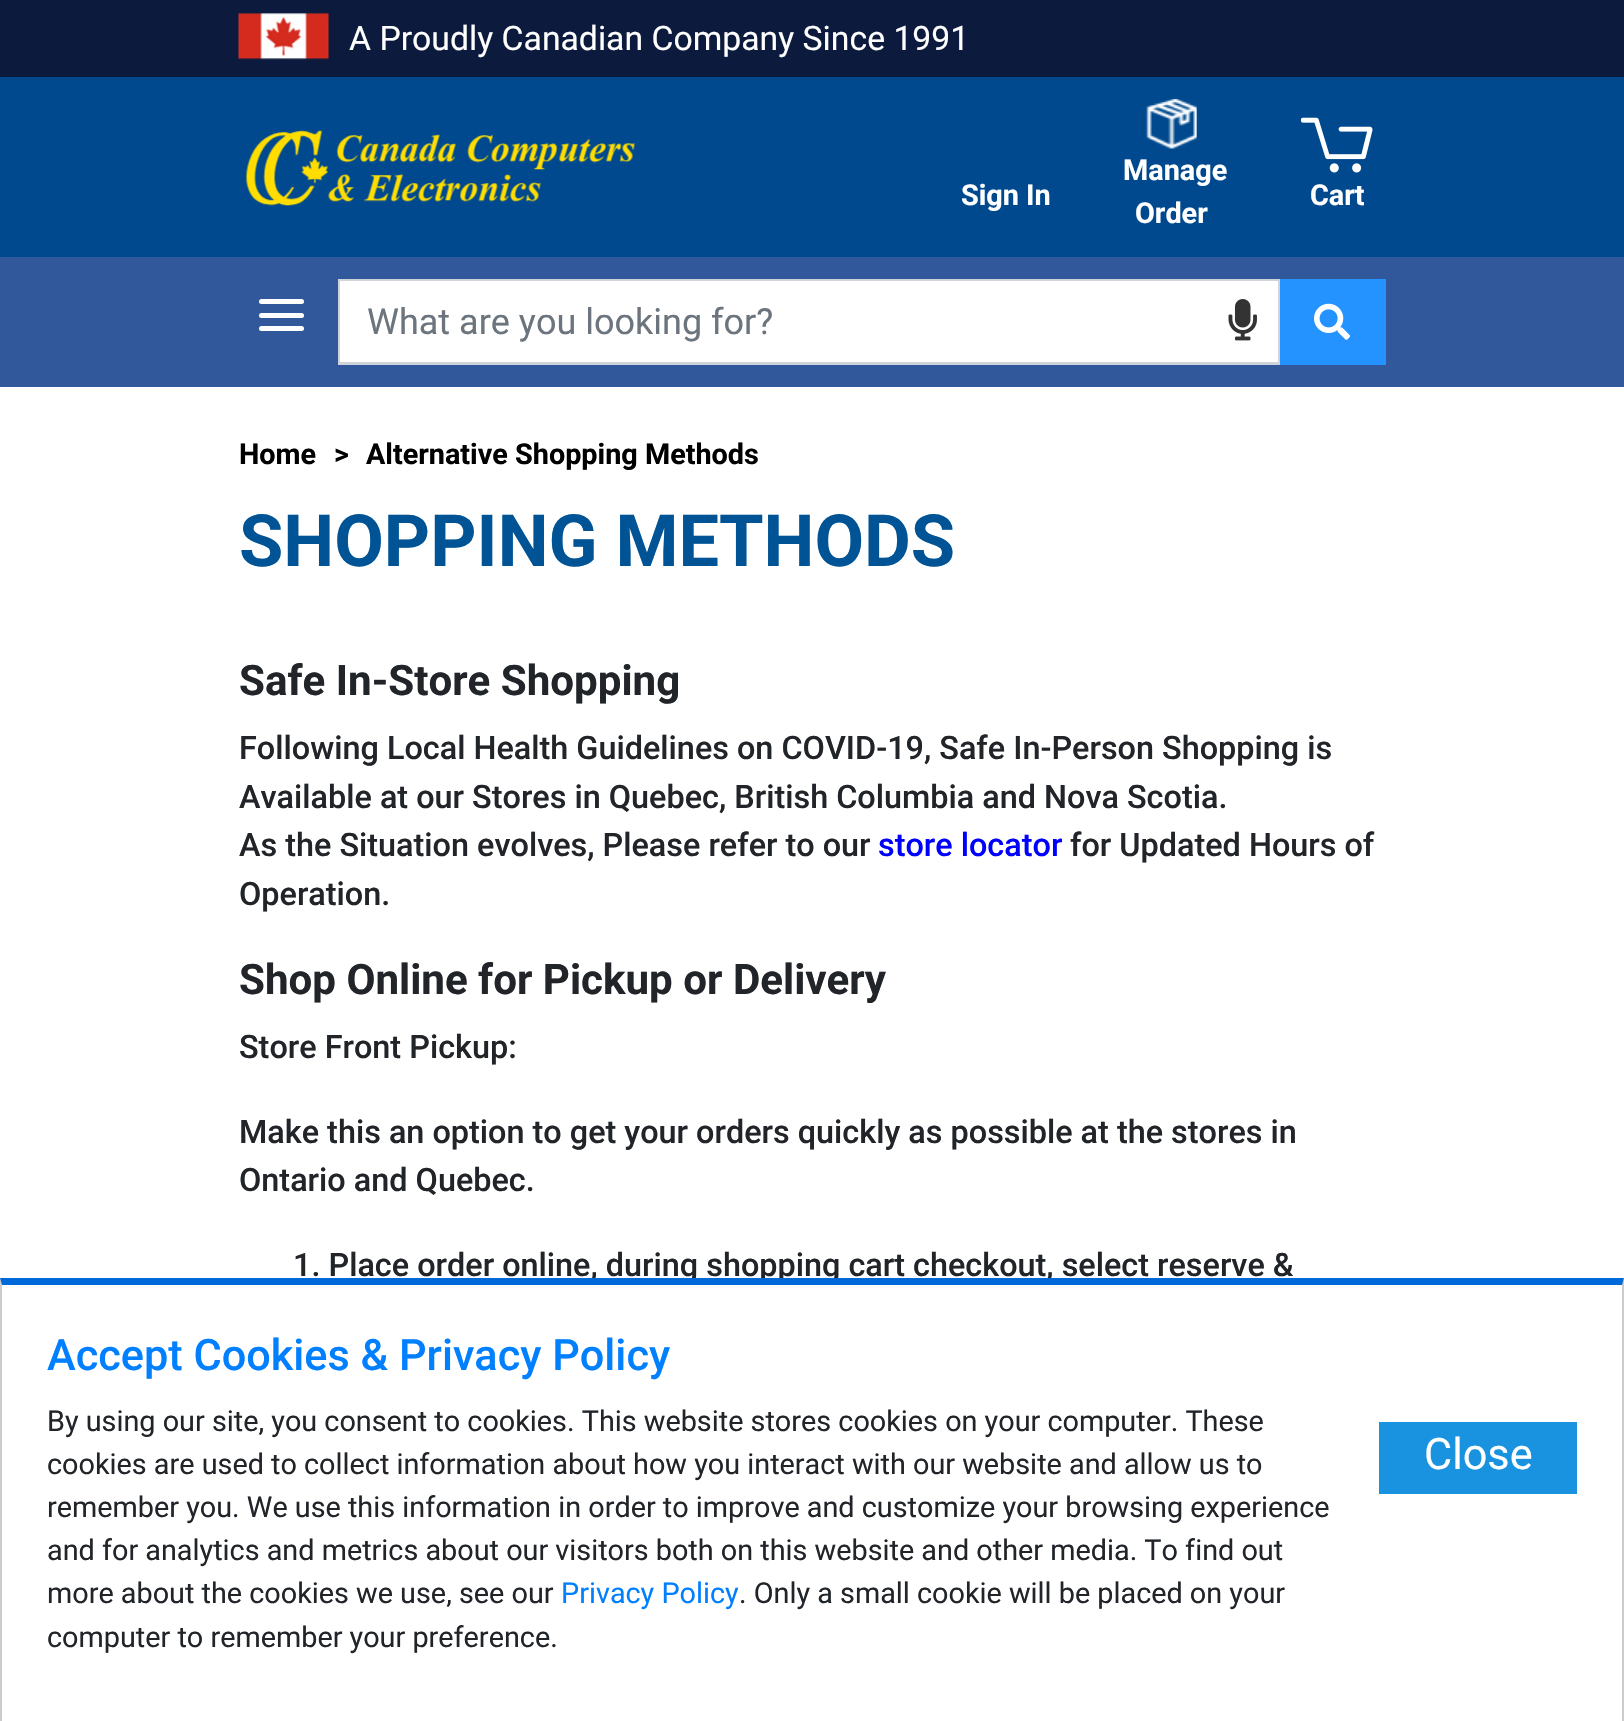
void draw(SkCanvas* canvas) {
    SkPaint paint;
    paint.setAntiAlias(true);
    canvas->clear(0xFFFFFFFF);
    paint.setColor(0xFF00498E);
    canvas->drawRect(SkRect::MakeXYWH(0, 77, 1624, 180), paint);
    paint.setColor(0xFF0C1B3D);
    canvas->drawRect(SkRect::MakeXYWH(0, 0, 1624, 77), paint);
    canvas->drawImageRect(SkImages::DeferredFromEncodedData(SkData::MakeFromFileName("img1.png")), SkRect::MakeXYWH(238, 13, 91, 47), SkSamplingOptions());
    SkFont font1(fontMgr->matchFamilyStyle("Roboto", SkFontStyle::Normal()), 33.75f);
    font1.setSubpixel(true);
    paint.setColor(0xFFFFFFFF);
    canvas->drawString("A Proudly Canadian Company Since 1991", 349, 50, font1, paint);
    canvas->drawImageRect(SkImages::DeferredFromEncodedData(SkData::MakeFromFileName("img2.png")), SkRect::MakeXYWH(246, 130, 389, 76), SkSamplingOptions());
    SkFont font2(fontMgr->matchFamilyStyle("Roboto", SkFontStyle::Bold()), 28.8f);
    font2.setSubpixel(true);
    canvas->drawString("Sign In", 961, 205, font2, paint);
    canvas->drawImageRect(SkImages::DeferredFromEncodedData(SkData::MakeFromFileName("img3.png")), SkRect::MakeXYWH(1146, 99, 51, 50), SkSamplingOptions());
    canvas->drawString("Manage", 1123, 180, font2, paint);
    canvas->drawString("Order", 1135, 223, font2, paint);
    canvas->drawImageRect(SkImages::DeferredFromEncodedData(SkData::MakeFromFileName("img4.png")), SkRect::MakeXYWH(1301, 117, 72, 56), SkSamplingOptions());
    canvas->drawString("Cart", 1310, 205, font2, paint);
    paint.setColor(0xFF30589A);
    canvas->drawRect(SkRect::MakeXYWH(0, 257, 1624, 130), paint);
    paint.setColor(0xFFFFFFFF);
    canvas->drawRoundRect(SkRect::MakeXYWH(259, 313, 45, 5), 2.5f, 2.5f, paint);
    canvas->drawRoundRect(SkRect::MakeXYWH(259, 299, 45, 5), 2.5f, 2.5f, paint);
    canvas->drawRoundRect(SkRect::MakeXYWH(259, 326, 45, 5), 2.5f, 2.5f, paint);
    canvas->drawRect(SkRect::MakeXYWH(340, 281, 938, 81), paint);
    paint.setColor(0xFFCED4DA);
    canvas->drawRect(SkRect::MakeXYWH(340, 362, 938, 1), paint);
    paint.setColor(0xFF2492FF);
    canvas->drawRect(SkRect::MakeXYWH(1280, 279, 106, 86), paint);
    canvas->drawImageRect(SkImages::DeferredFromEncodedData(SkData::MakeFromFileName("img5.png")), SkRect::MakeXYWH(1314, 303, 36, 37), SkSamplingOptions());
    paint.setStyle(SkPaint::kStroke_Style);
    paint.setStrokeWidth(2);
    paint.setColor(0xFFCED4DA);
    canvas->drawRect(SkRect::MakeXYWH(339, 280, 940, 84), paint);
    SkFont font3(fontMgr->matchFamilyStyle("Roboto", SkFontStyle::Normal()), 36);
    font3.setSubpixel(true);
    paint.setStyle(SkPaint::kFill_Style);
    paint.setColor(0xFF6C757D);
    canvas->drawString("What are you looking for?", 367, 334, font3, paint);
    canvas->drawImageRect(SkImages::DeferredFromEncodedData(SkData::MakeFromFileName("img6.png")), SkRect::MakeXYWH(1228, 299, 29, 42), SkSamplingOptions());
    paint.setColor(0xFF000000);
    canvas->drawString("Home", 239, 464, font2, paint);
    canvas->drawString(">", 334, 464, font2, paint);
    canvas->drawString("Alternative Shopping Methods", 366, 464, font2, paint);
    SkFont font4(fontMgr->matchFamilyStyle("Roboto", SkFontStyle::Bold()), 72);
    font4.setSubpixel(true);
    paint.setColor(0xFF005495);
    canvas->drawString("SHOPPING METHODS", 239, 566, font4, paint);
    SkFont font5(fontMgr->matchFamilyStyle("Roboto", SkFontStyle::Bold()), 42.1f);
    font5.setSubpixel(true);
    paint.setColor(0xFF212529);
    canvas->drawString("Safe In-Store Shopping", 239, 695, font5, paint);
    SkFont font6(fontMgr->matchFamilyStyle("Roboto", SkFontStyle(500, SkFontStyle::kNormal_Width, SkFontStyle::kUpright_Slant)), 32.4f);
    font6.setSubpixel(true);
    canvas->drawString("Following Local Health Guidelines on COVID-19, Safe In-Person Shopping is", 239, 759, font6, paint);
    canvas->drawString("Available at our Stores in Quebec, British Columbia and Nova Scotia.", 239, 808, font6, paint);
    canvas->drawString("As the Situation evolves, Please refer to our", 239, 856, font6, paint);
    paint.setColor(0xFF0000FF);
    canvas->drawString("store locator", 878, 856, font6, paint);
    paint.setColor(0xFF212529);
    canvas->drawString("for Updated Hours of", 1070, 856, font6, paint);
    canvas->drawString("Operation.", 239, 905, font6, paint);
    canvas->drawString("Shop Online for Pickup or Delivery", 239, 994, font5, paint);
    canvas->drawString("Store Front Pickup:", 239, 1058, font6, paint);
    canvas->drawString("Make this an option to get your orders quickly as possible at the stores in", 239, 1143, font6, paint);
    canvas->drawString("Ontario and Quebec.", 239, 1191, font6, paint);
    canvas->drawString("1. Place order online, during shopping cart checkout, select reserve &", 293, 1276, font6, paint);
    paint.setColor(0xFF0069D9);
    canvas->drawPath(SkPathBuilder().moveTo(0, 1278).lineTo(1624, 1278).lineTo(1622, 1285).lineTo(2, 1285).close().detach(), paint);
    paint.setColor(0x33000000);
    canvas->drawPath(SkPathBuilder().moveTo(1624, 1278).lineTo(1624, 1721).lineTo(1622, 1721).lineTo(1622, 1285).close().detach(), paint);
    canvas->drawPath(SkPathBuilder().moveTo(0, 1721).lineTo(0, 1278).lineTo(2, 1285).lineTo(2, 1721).close().detach(), paint);
    SkFont font7(fontMgr->matchFamilyStyle("Roboto", SkFontStyle(500, SkFontStyle::kNormal_Width, SkFontStyle::kUpright_Slant)), 43.25f);
    font7.setSubpixel(true);
    paint.setColor(0xFF007FFF);
    canvas->drawString("Accept Cookies & Privacy Policy", 47, 1370, font7, paint);
    SkFont font8(fontMgr->matchFamilyStyle("Roboto", SkFontStyle::Normal()), 28.8f);
    font8.setSubpixel(true);
    paint.setColor(0xFF212529);
    canvas->drawString("By using our site, you consent to cookies. This website stores cookies on your computer. These", 47, 1431, font8, paint);
    canvas->drawString("cookies are used to collect information about how you interact with our website and allow us to", 47, 1474, font8, paint);
    canvas->drawString("remember you. We use this information in order to improve and customize your browsing experience", 47, 1517, font8, paint);
    canvas->drawString("and for analytics and metrics about our visitors both on this website and other media. To find out", 47, 1560, font8, paint);
    canvas->drawString("more about the cookies we use, see our", 47, 1603, font8, paint);
    paint.setColor(0xFF007FFF);
    canvas->drawString("Privacy Policy", 561, 1603, font8, paint);
    paint.setColor(0xFF212529);
    canvas->drawString(". Only a small cookie will be placed on your", 739, 1603, font8, paint);
    canvas->drawString("computer to remember your preference.", 47, 1647, font8, paint);
    paint.setColor(0xFF1992DF);
    canvas->drawRect(SkRect::MakeXYWH(1379, 1422, 198, 72), paint);
    SkFont font9(fontMgr->matchFamilyStyle("Roboto", SkFontStyle::Normal()), 43.25f);
    font9.setSubpixel(true);
    paint.setColor(0xFFFFFFFF);
    canvas->drawString("Close", 1424, 1469, font9, paint);
}
